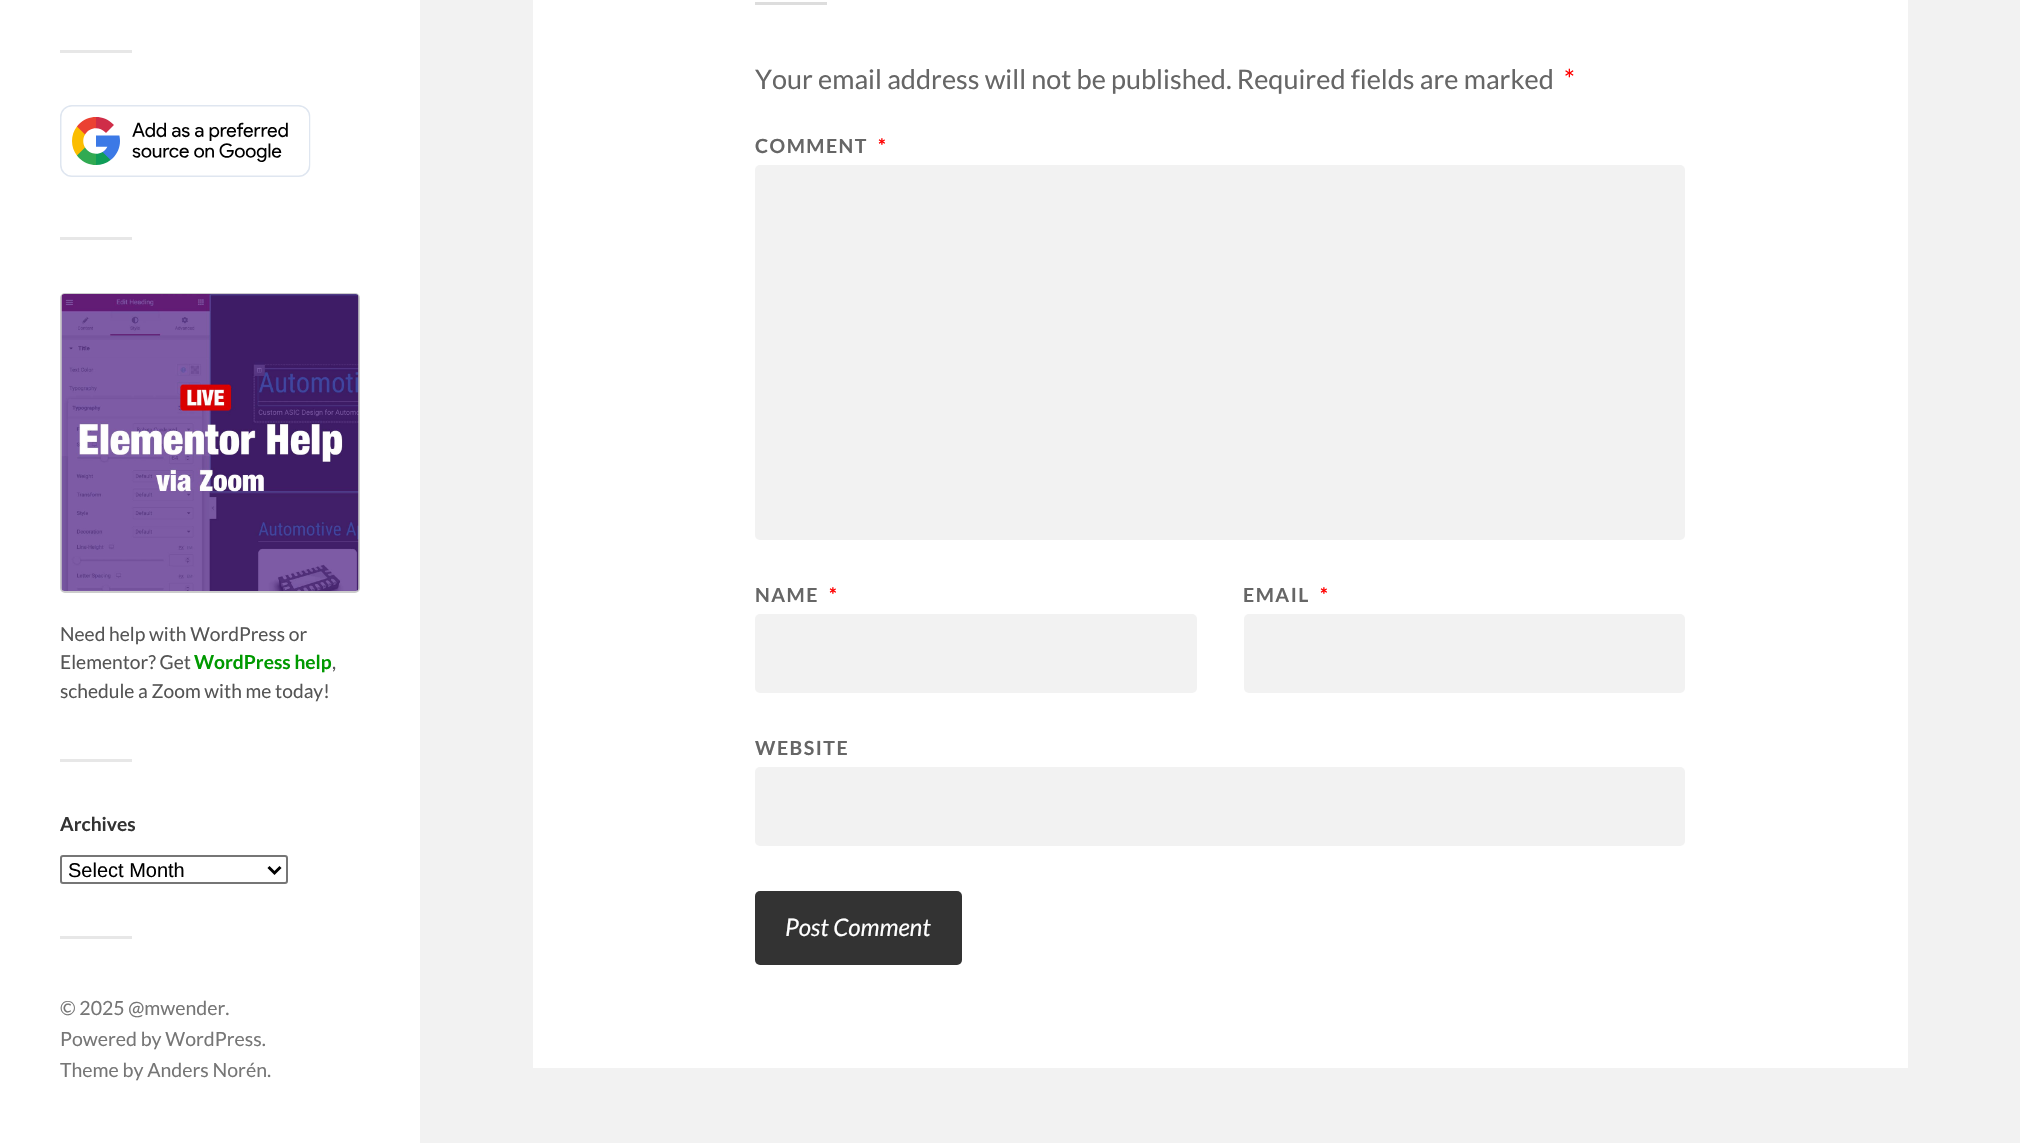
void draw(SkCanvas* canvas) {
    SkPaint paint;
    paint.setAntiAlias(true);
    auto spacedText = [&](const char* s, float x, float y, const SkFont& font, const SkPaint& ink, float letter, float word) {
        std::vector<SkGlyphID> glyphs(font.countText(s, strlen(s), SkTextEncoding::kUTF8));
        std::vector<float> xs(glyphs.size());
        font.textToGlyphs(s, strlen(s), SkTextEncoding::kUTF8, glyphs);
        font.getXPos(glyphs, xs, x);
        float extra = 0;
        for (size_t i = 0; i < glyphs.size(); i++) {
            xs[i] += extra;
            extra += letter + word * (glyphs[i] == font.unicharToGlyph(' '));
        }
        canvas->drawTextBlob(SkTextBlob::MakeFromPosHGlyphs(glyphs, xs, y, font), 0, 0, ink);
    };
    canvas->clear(0xFFF2F2F2);
    paint.setColor(0xFFFFFFFF);
    canvas->drawRect(SkRect::MakeXYWH(0, 0, 420, 1143), paint);
    paint.setColor(0xFFE7E7E7);
    canvas->drawRect(SkRect::MakeXYWH(60, 50, 72, 3), paint);
    canvas->drawImageRect(SkImages::DeferredFromEncodedData(SkData::MakeFromFileName("img1.png")), SkRect::MakeXYWH(60, 105, 251, 72), SkSamplingOptions());
    canvas->drawRect(SkRect::MakeXYWH(60, 237, 72, 3), paint);
    paint.setStyle(SkPaint::kStroke_Style);
    paint.setStrokeWidth(2);
    paint.setColor(0xFFCCCCCC);
    canvas->drawRoundRect(SkRect::MakeXYWH(61, 294, 298, 298), 4, 4, paint);
    canvas->drawImageRect(SkImages::DeferredFromEncodedData(SkData::MakeFromFileName("img2.png")), SkRect::MakeXYWH(61, 294, 298, 297), SkSamplingOptions());
    SkFont font1(fontMgr->matchFamilyStyle("Lato", SkFontStyle::Normal()), 19.2f);
    font1.setSubpixel(true);
    paint.setStyle(SkPaint::kFill_Style);
    paint.setColor(0xFF555555);
    canvas->drawString("Need help with WordPress or", 60, 641, font1, paint);
    canvas->drawString("Elementor? Get", 60, 669, font1, paint);
    SkFont font2(fontMgr->matchFamilyStyle("Lato", SkFontStyle::Bold()), 19.2f);
    font2.setSubpixel(true);
    paint.setColor(0xFF009900);
    canvas->drawString("WordPress help", 194, 669, font2, paint);
    paint.setColor(0xFF555555);
    canvas->drawString(",", 332, 669, font1, paint);
    canvas->drawString("schedule a Zoom with me today!", 60, 698, font1, paint);
    paint.setColor(0xFFE7E7E7);
    canvas->drawRect(SkRect::MakeXYWH(60, 759, 72, 3), paint);
    paint.setColor(0xFF333333);
    canvas->drawString("Archives", 60, 831, font2, paint);
    paint.setStyle(SkPaint::kStroke_Style);
    paint.setColor(0xFF767676);
    canvas->drawRoundRect(SkRect::MakeXYWH(61, 856, 226, 27), 2, 2, paint);
    paint.setStrokeWidth(3);
    paint.setColor(0xFF000000);
    canvas->drawPath(SkPathBuilder().moveTo(268.5f, 867).lineTo(274.5f, 873).lineTo(280.5f, 867).detach(), paint);
    SkFont font3(fontMgr->matchFamilyStyle("Liberation Sans", SkFontStyle::Normal()), 20);
    font3.setSubpixel(true);
    paint.setStyle(SkPaint::kFill_Style);
    canvas->drawString("Select Month", 68, 877, font3, paint);
    paint.setColor(0xFFE7E7E7);
    canvas->drawRect(SkRect::MakeXYWH(60, 936, 72, 3), paint);
    SkFont font4(fontMgr->matchFamilyStyle("Lato", SkFontStyle::Normal()), 19.5f);
    font4.setSubpixel(true);
    paint.setColor(0xFF767676);
    canvas->drawString("© 2025 @mwender.", 60, 1015, font4, paint);
    canvas->drawString("Powered by WordPress.", 60, 1046, font4, paint);
    canvas->drawString("Theme by Anders Norén.", 60, 1077, font4, paint);
    paint.setColor(0xFFFFFFFF);
    canvas->drawRect(SkRect::MakeXYWH(533, 0, 1375, 1068), paint);
    paint.setColor(0xFFDDDDDD);
    canvas->drawRect(SkRect::MakeXYWH(755, 2, 72, 3), paint);
    SkFont font5(fontMgr->matchFamilyStyle("Lato", SkFontStyle::Normal()), 27);
    font5.setSubpixel(true);
    paint.setColor(0xFF666666);
    canvas->drawString("Your email address will not be published. Required fields are marked", 755, 89, font5, paint);
    paint.setColor(0xFFFF0000);
    canvas->drawString("*", 1564, 89, font5, paint);
    SkFont font6(fontMgr->matchFamilyStyle("Lato", SkFontStyle::Bold()), 19.5f);
    font6.setSubpixel(true);
    paint.setColor(0xFF666666);
    spacedText("COMMENT", 755, 153, font6, paint, 1.5f, 0);
    paint.setColor(0xFFFF0000);
    spacedText("*", 878, 153, font6, paint, 1.5f, 0);
    paint.setColor(0xFFF2F2F2);
    canvas->drawRoundRect(SkRect::MakeXYWH(755, 165, 930, 375), 5, 5, paint);
    paint.setColor(0xFF666666);
    spacedText("NAME", 755, 602, font6, paint, 1.5f, 0);
    paint.setColor(0xFFFF0000);
    spacedText("*", 829, 602, font6, paint, 1.5f, 0);
    paint.setColor(0xFFF2F2F2);
    canvas->drawRoundRect(SkRect::MakeXYWH(755, 614, 442, 79), 5, 5, paint);
    paint.setColor(0xFF666666);
    spacedText("EMAIL", 1243, 602, font6, paint, 1.5f, 0);
    paint.setColor(0xFFFF0000);
    spacedText("*", 1320, 602, font6, paint, 1.5f, 0);
    paint.setColor(0xFFF2F2F2);
    canvas->drawRoundRect(SkRect::MakeXYWH(1244, 614, 441, 79), 5, 5, paint);
    paint.setColor(0xFF666666);
    spacedText("WEBSITE", 755, 755, font6, paint, 1.5f, 0);
    paint.setColor(0xFFF2F2F2);
    canvas->drawRoundRect(SkRect::MakeXYWH(755, 767, 930, 79), 5, 5, paint);
    paint.setColor(0xFF333333);
    canvas->drawRoundRect(SkRect::MakeXYWH(755, 891, 207, 74), 5, 5, paint);
    SkFont font7(fontMgr->matchFamilyStyle("Lato", SkFontStyle::Italic()), 24.25f);
    font7.setSubpixel(true);
    paint.setColor(0xFFFFFFFF);
    canvas->drawString("Post Comment", 785, 936, font7, paint);
}
